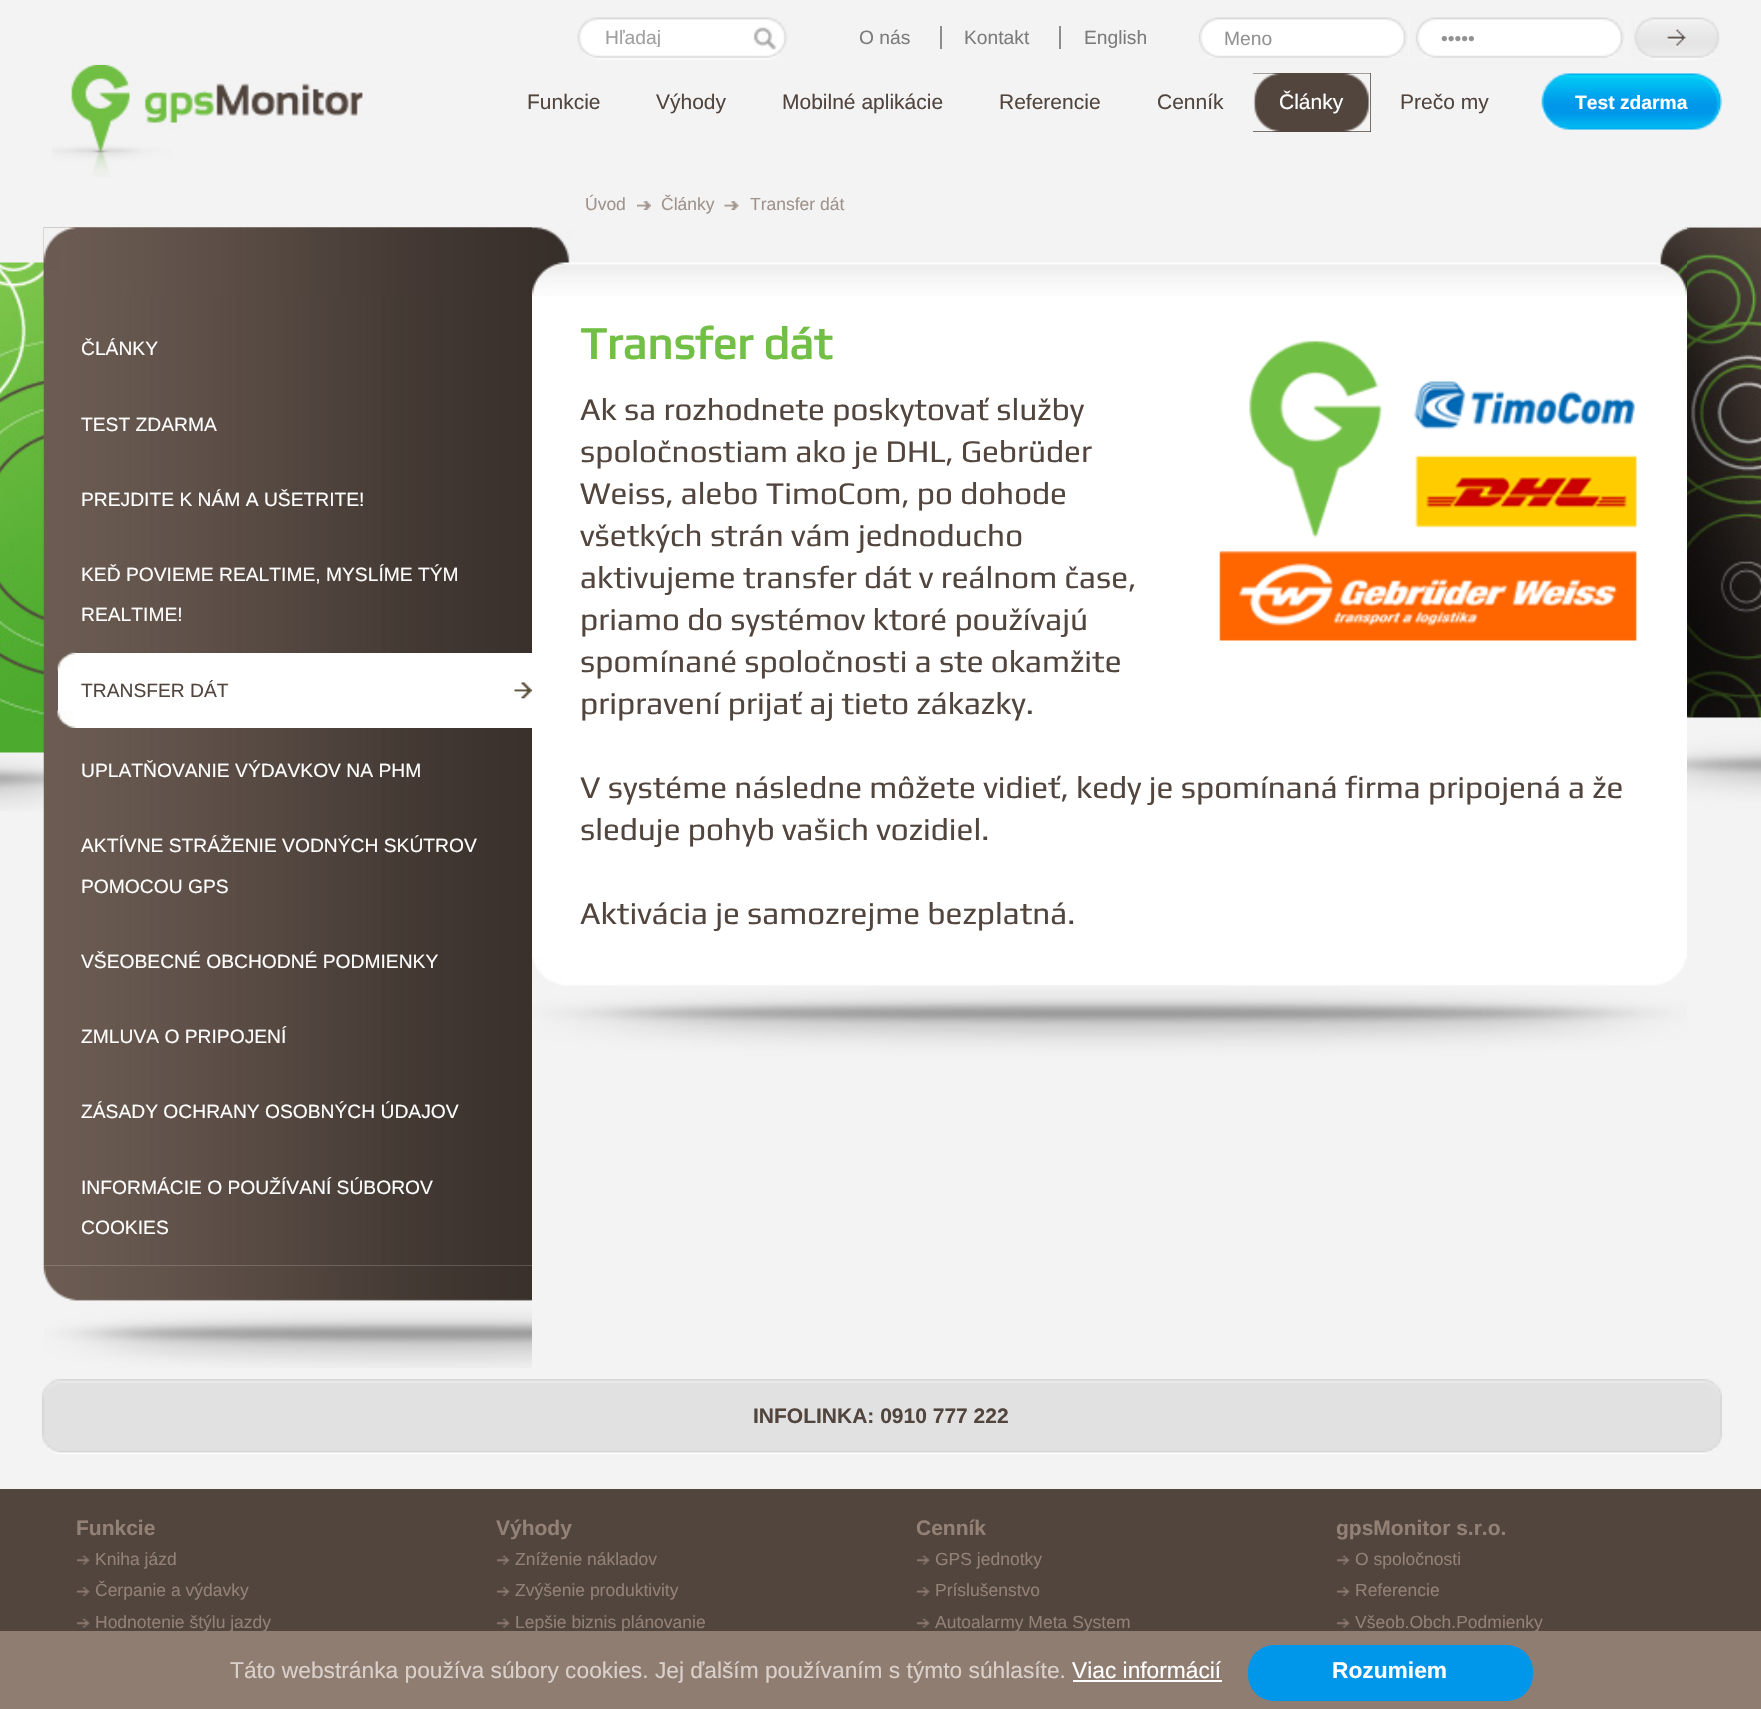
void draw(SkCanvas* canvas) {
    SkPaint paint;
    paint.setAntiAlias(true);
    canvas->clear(0xFFF3F3F3);
    canvas->drawImageRect(SkImages::DeferredFromEncodedData(SkData::MakeFromFileName("img1.png")), SkRect::MakeXYWH(0, 223, 1761, 588), SkSamplingOptions());
    canvas->drawImageRect(SkImages::DeferredFromEncodedData(SkData::MakeFromFileName("img2.png")), SkRect::MakeXYWH(577, 17, 211, 43), SkSamplingOptions());
    canvas->save();
    canvas->clipRect(SkRect::MakeXYWH(606, 26, 143, 21));
    SkFont font1(fontMgr->matchFamilyStyle("Liberation Sans", SkFontStyle::Normal()), 19.25f);
    font1.setSubpixel(true);
    paint.setColor(0xFFA0A0A0);
    canvas->drawString("Hľadaj", 605, 44, font1, paint);
    canvas->restore();
    canvas->drawImageRect(SkImages::DeferredFromEncodedData(SkData::MakeFromFileName("img3.png")), SkRect::MakeXYWH(753, 27, 24, 23), SkSamplingOptions());
    paint.setColor(0xFF7C7C7C);
    canvas->drawString("O nás", 859, 44, font1, paint);
    paint.setColor(0xFF8D8D8D);
    canvas->drawRect(SkRect::MakeXYWH(940, 26, 2, 23), paint);
    paint.setColor(0xFF7C7C7C);
    canvas->drawString("Kontakt", 964, 44, font1, paint);
    paint.setColor(0xFF8D8D8D);
    canvas->drawRect(SkRect::MakeXYWH(1059, 26, 2, 23), paint);
    paint.setColor(0xFF7C7C7C);
    canvas->drawString("English", 1084, 44, font1, paint);
    paint.setColor(0xFFFFFFFF);
    canvas->drawRect(SkRect::MakeXYWH(1199, 18, 210, 40), paint);
    canvas->drawImageRect(SkImages::DeferredFromEncodedData(SkData::MakeFromFileName("img4.png")), SkRect::MakeXYWH(1198, 17, 211, 41), SkSamplingOptions());
    paint.setColor(0xFF929292);
    canvas->drawString("Meno", 1224, 45, font1, paint);
    paint.setColor(0xFFFFFFFF);
    canvas->drawRect(SkRect::MakeXYWH(1416, 18, 210, 40), paint);
    canvas->drawImageRect(SkImages::DeferredFromEncodedData(SkData::MakeFromFileName("img5.png")), SkRect::MakeXYWH(1415, 17, 211, 41), SkSamplingOptions());
    paint.setColor(0xFF929292);
    canvas->drawString("•••••", 1441, 45, font1, paint);
    paint.setColor(0xFFEFEFEF);
    canvas->drawRect(SkRect::MakeXYWH(1633, 18, 87, 42), paint);
    canvas->drawImageRect(SkImages::DeferredFromEncodedData(SkData::MakeFromFileName("img6.png")), SkRect::MakeXYWH(1634, 17, 86, 43), SkSamplingOptions());
    canvas->drawImageRect(SkImages::DeferredFromEncodedData(SkData::MakeFromFileName("img7.png")), SkRect::MakeXYWH(52, 64, 311, 113), SkSamplingOptions());
    SkFont font2(fontMgr->matchFamilyStyle("Liberation Sans", SkFontStyle::Normal()), 21);
    font2.setSubpixel(true);
    paint.setColor(0xFF51453E);
    canvas->drawString("Funkcie", 527, 109, font2, paint);
    canvas->drawString("Výhody", 656, 109, font2, paint);
    canvas->drawString("Mobilné aplikácie", 782, 109, font2, paint);
    canvas->drawString("Referencie", 999, 109, font2, paint);
    canvas->drawString("Cenník", 1157, 109, font2, paint);
    paint.setColor(0xFF52453D);
    canvas->drawRect(SkRect::MakeXYWH(1253, 73, 118, 59), paint);
    canvas->drawImageRect(SkImages::DeferredFromEncodedData(SkData::MakeFromFileName("img8.png")), SkRect::MakeXYWH(1253, 73, 27, 59), SkSamplingOptions());
    canvas->drawImageRect(SkImages::DeferredFromEncodedData(SkData::MakeFromFileName("img9.png")), SkRect::MakeXYWH(1343, 73, 28, 59), SkSamplingOptions());
    paint.setColor(0xFFFFFFFF);
    canvas->drawString("Články", 1279, 109, font2, paint);
    paint.setColor(0xFF51453E);
    canvas->drawString("Prečo my", 1400, 109, font2, paint);
    canvas->drawImageRect(SkImages::DeferredFromEncodedData(SkData::MakeFromFileName("img10.png")), SkRect::MakeXYWH(1541, 73, 181, 57), SkSamplingOptions());
    SkFont font3(fontMgr->matchFamilyStyle("Liberation Sans", SkFontStyle::Bold()), 19.25f);
    font3.setSubpixel(true);
    paint.setColor(0xFFFFFFFF);
    canvas->drawString("Test zdarma", 1575, 109, font3, paint);
    SkFont font4(fontMgr->matchFamilyStyle("Liberation Sans", SkFontStyle::Normal()), 17.5f);
    font4.setSubpixel(true);
    paint.setColor(0xFF9F938C);
    canvas->drawString("Úvod", 585, 210, font4, paint);
    canvas->drawImageRect(SkImages::DeferredFromEncodedData(SkData::MakeFromFileName("img11.png")), SkRect::MakeXYWH(637, 201, 14, 9), SkSamplingOptions());
    canvas->drawString("Články", 661, 210, font4, paint);
    canvas->drawImageRect(SkImages::DeferredFromEncodedData(SkData::MakeFromFileName("img12.png")), SkRect::MakeXYWH(724, 201, 15, 9), SkSamplingOptions());
    canvas->drawString("Transfer dát", 750, 210, font4, paint);
    canvas->drawImageRect(SkImages::DeferredFromEncodedData(SkData::MakeFromFileName("img13.png")), SkRect::MakeXYWH(43, 227, 489, 1039), SkSamplingOptions());
    canvas->drawImageRect(SkImages::DeferredFromEncodedData(SkData::MakeFromFileName("img14.png")), SkRect::MakeXYWH(43, 227, 489, 69), SkSamplingOptions());
    paint.setColor(0xFFFFFFFF);
    canvas->drawString("ČLÁNKY", 81, 355, font1, paint);
    canvas->drawString("TEST ZDARMA", 81, 431, font1, paint);
    canvas->drawString("PREJDITE K NÁM A UŠETRITE!", 81, 506, font1, paint);
    canvas->drawString("KEĎ POVIEME REALTIME, MYSLÍME TÝM", 81, 581, font1, paint);
    canvas->drawString("REALTIME!", 81, 621, font1, paint);
    canvas->drawRect(SkRect::MakeXYWH(58, 653, 474, 75), paint);
    canvas->drawImageRect(SkImages::DeferredFromEncodedData(SkData::MakeFromFileName("img15.png")), SkRect::MakeXYWH(514, 682, 18, 17), SkSamplingOptions());
    canvas->drawImageRect(SkImages::DeferredFromEncodedData(SkData::MakeFromFileName("img16.png")), SkRect::MakeXYWH(57, 652, 19, 19), SkSamplingOptions());
    canvas->drawImageRect(SkImages::DeferredFromEncodedData(SkData::MakeFromFileName("img17.png")), SkRect::MakeXYWH(57, 710, 19, 18), SkSamplingOptions());
    canvas->drawImageRect(SkImages::DeferredFromEncodedData(SkData::MakeFromFileName("img18.png")), SkRect::MakeXYWH(57, 710, 19, 18), SkSamplingOptions());
    paint.setColor(0xFF51453E);
    canvas->drawString("TRANSFER DÁT", 81, 697, font1, paint);
    paint.setColor(0xFFFFFFFF);
    canvas->drawString("UPLATŇOVANIE VÝDAVKOV NA PHM", 81, 777, font1, paint);
    canvas->drawString("AKTÍVNE STRÁŽENIE VODNÝCH SKÚTROV", 81, 852, font1, paint);
    canvas->drawString("POMOCOU GPS", 81, 893, font1, paint);
    canvas->drawString("VŠEOBECNÉ OBCHODNÉ PODMIENKY", 81, 968, font1, paint);
    canvas->drawString("ZMLUVA O PRIPOJENÍ", 81, 1043, font1, paint);
    canvas->drawString("ZÁSADY OCHRANY OSOBNÝCH ÚDAJOV", 81, 1118, font1, paint);
    canvas->drawString("INFORMÁCIE O POUŽÍVANÍ SÚBOROV", 81, 1194, font1, paint);
    canvas->drawString("COOKIES", 81, 1234, font1, paint);
    canvas->drawImageRect(SkImages::DeferredFromEncodedData(SkData::MakeFromFileName("img19.png")), SkRect::MakeXYWH(43, 1265, 489, 103), SkSamplingOptions());
    canvas->drawRect(SkRect::MakeXYWH(532, 295, 1155, 663), paint);
    canvas->drawImageRect(SkImages::DeferredFromEncodedData(SkData::MakeFromFileName("img20.png")), SkRect::MakeXYWH(532, 227, 1155, 69), SkSamplingOptions());
    canvas->drawImageRect(SkImages::DeferredFromEncodedData(SkData::MakeFromFileName("img21.png")), SkRect::MakeXYWH(532, 957, 1155, 100), SkSamplingOptions());
    SkFont font5(fontMgr->matchFamilyStyle("Play", SkFontStyle::Bold()), 45.5f);
    font5.setSubpixel(true);
    paint.setColor(0xFF71BF44);
    canvas->drawString("Transfer dát", 580, 359, font5, paint);
    canvas->drawImageRect(SkImages::DeferredFromEncodedData(SkData::MakeFromFileName("img22.png")), SkRect::MakeXYWH(1219, 340, 418, 301), SkSamplingOptions());
    SkFont font6(fontMgr->matchFamilyStyle("Play", SkFontStyle::Normal()), 31.5f);
    font6.setSubpixel(true);
    paint.setColor(0xFF51453E);
    canvas->drawString("Ak sa rozhodnete poskytovať služby", 580, 420, font6, paint);
    canvas->drawString("spoločnostiam ako je DHL, Gebrüder", 580, 462, font6, paint);
    canvas->drawString("Weiss, alebo TimoCom, po dohode", 580, 504, font6, paint);
    canvas->drawString("všetkých strán vám jednoducho", 580, 546, font6, paint);
    canvas->drawString("aktivujeme transfer dát v reálnom čase,", 580, 588, font6, paint);
    canvas->drawString("priamo do systémov ktoré používajú", 580, 630, font6, paint);
    canvas->drawString("spomínané spoločnosti a ste okamžite", 580, 672, font6, paint);
    canvas->drawString("pripravení prijať aj tieto zákazky.", 580, 714, font6, paint);
    canvas->drawString("V systéme následne môžete vidieť, kedy je spomínaná firma pripojená a že", 580, 798, font6, paint);
    canvas->drawString("sleduje pohyb vašich vozidiel.", 580, 840, font6, paint);
    canvas->drawString("Aktivácia je samozrejme bezplatná.", 580, 924, font6, paint);
    canvas->drawImageRect(SkImages::DeferredFromEncodedData(SkData::MakeFromFileName("img23.png")), SkRect::MakeXYWH(42, 1379, 1680, 75), SkSamplingOptions());
    SkFont font7(fontMgr->matchFamilyStyle("Liberation Sans", SkFontStyle::Bold()), 21);
    font7.setSubpixel(true);
    canvas->drawString("INFOLINKA: 0910 777 222", 753, 1423, font7, paint);
    canvas->drawRect(SkRect::MakeXYWH(0, 1489, 1761, 142), paint);
    paint.setColor(0xFF938176);
    canvas->drawString("Funkcie", 76, 1535, font7, paint);
    canvas->drawImageRect(SkImages::DeferredFromEncodedData(SkData::MakeFromFileName("img24.png")), SkRect::MakeXYWH(77, 1555, 13, 10), SkSamplingOptions());
    canvas->drawString("Kniha jázd", 95, 1565, font4, paint);
    canvas->drawImageRect(SkImages::DeferredFromEncodedData(SkData::MakeFromFileName("img25.png")), SkRect::MakeXYWH(77, 1587, 13, 9), SkSamplingOptions());
    canvas->drawString("Čerpanie a výdavky", 95, 1596, font4, paint);
    canvas->drawImageRect(SkImages::DeferredFromEncodedData(SkData::MakeFromFileName("img24.png")), SkRect::MakeXYWH(77, 1618, 13, 10), SkSamplingOptions());
    canvas->drawString("Hodnotenie štýlu jazdy", 95, 1628, font4, paint);
    canvas->drawString("Výhody", 496, 1535, font7, paint);
    canvas->drawImageRect(SkImages::DeferredFromEncodedData(SkData::MakeFromFileName("img24.png")), SkRect::MakeXYWH(497, 1555, 13, 10), SkSamplingOptions());
    canvas->drawString("Zníženie nákladov", 515, 1565, font4, paint);
    canvas->drawImageRect(SkImages::DeferredFromEncodedData(SkData::MakeFromFileName("img25.png")), SkRect::MakeXYWH(497, 1587, 13, 9), SkSamplingOptions());
    canvas->drawString("Zvýšenie produktivity", 515, 1596, font4, paint);
    canvas->drawImageRect(SkImages::DeferredFromEncodedData(SkData::MakeFromFileName("img24.png")), SkRect::MakeXYWH(497, 1618, 13, 10), SkSamplingOptions());
    canvas->drawString("Lepšie biznis plánovanie", 515, 1628, font4, paint);
    canvas->drawString("Cenník", 916, 1535, font7, paint);
    canvas->drawImageRect(SkImages::DeferredFromEncodedData(SkData::MakeFromFileName("img24.png")), SkRect::MakeXYWH(917, 1555, 13, 10), SkSamplingOptions());
    canvas->drawString("GPS jednotky", 935, 1565, font4, paint);
    canvas->drawImageRect(SkImages::DeferredFromEncodedData(SkData::MakeFromFileName("img25.png")), SkRect::MakeXYWH(917, 1587, 13, 9), SkSamplingOptions());
    canvas->drawString("Príslušenstvo", 935, 1596, font4, paint);
    canvas->drawImageRect(SkImages::DeferredFromEncodedData(SkData::MakeFromFileName("img24.png")), SkRect::MakeXYWH(917, 1618, 13, 10), SkSamplingOptions());
    canvas->drawString("Autoalarmy Meta System", 935, 1628, font4, paint);
    canvas->drawString("gpsMonitor s.r.o.", 1336, 1535, font7, paint);
    canvas->drawImageRect(SkImages::DeferredFromEncodedData(SkData::MakeFromFileName("img24.png")), SkRect::MakeXYWH(1337, 1555, 13, 10), SkSamplingOptions());
    canvas->drawString("O spoločnosti", 1355, 1565, font4, paint);
    canvas->drawImageRect(SkImages::DeferredFromEncodedData(SkData::MakeFromFileName("img25.png")), SkRect::MakeXYWH(1337, 1587, 13, 9), SkSamplingOptions());
    canvas->drawString("Referencie", 1355, 1596, font4, paint);
    canvas->drawImageRect(SkImages::DeferredFromEncodedData(SkData::MakeFromFileName("img24.png")), SkRect::MakeXYWH(1337, 1618, 13, 10), SkSamplingOptions());
    canvas->drawString("Všeob.Obch.Podmienky", 1355, 1628, font4, paint);
    paint.setColor(0xFF8F7D72);
    canvas->drawRect(SkRect::MakeXYWH(0, 1631, 1761, 78), paint);
    SkFont font8(fontMgr->matchFamilyStyle("Liberation Sans", SkFontStyle::Normal()), 22.75f);
    font8.setSubpixel(true);
    paint.setColor(0xFFDAD0CA);
    canvas->drawString("Táto webstránka používa súbory cookies. Jej ďalším používaním s týmto súhlasíte.", 230, 1678, font8, paint);
    paint.setColor(0xFFFFFFFF);
    canvas->drawString("Viac informácií", 1072, 1678, font8, paint);
    canvas->drawRect(SkRect::MakeXYWH(1073, 1680, 149, 2), paint);
    paint.setColor(0xFF0096EA);
    canvas->drawRoundRect(SkRect::MakeXYWH(1248, 1645, 285, 56), 26, 26, paint);
    SkFont font9(fontMgr->matchFamilyStyle("Liberation Sans", SkFontStyle::Bold()), 22.75f);
    font9.setSubpixel(true);
    paint.setColor(0xFFFFFFFF);
    canvas->drawString("Rozumiem", 1332, 1678, font9, paint);
}
